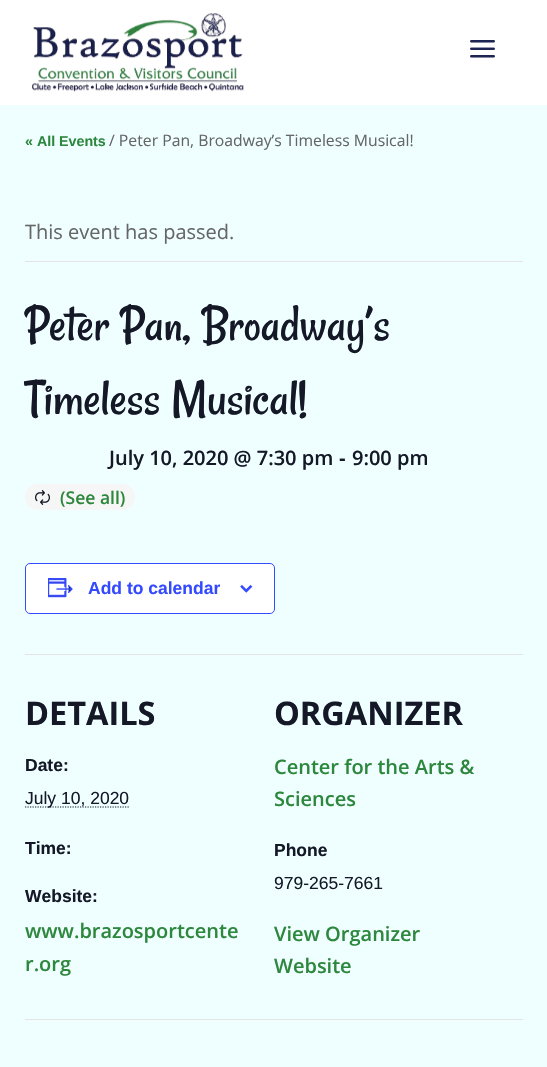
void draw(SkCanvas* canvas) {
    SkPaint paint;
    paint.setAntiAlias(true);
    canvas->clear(0xFFEFFFFF);
    paint.setColor(0xFFFFFFFF);
    canvas->drawRect(SkRect::MakeXYWH(0, 0, 547, 105), paint);
    canvas->drawImageRect(SkImages::DeferredFromEncodedData(SkData::MakeFromFileName("img1.png")), SkRect::MakeXYWH(32, 13, 212, 79), SkSamplingOptions());
    canvas->drawImageRect(SkImages::DeferredFromEncodedData(SkData::MakeFromFileName("img2.png")), SkRect::MakeXYWH(470, 40, 25, 18), SkSamplingOptions());
    SkFont font1(fontMgr->matchFamilyStyle("Liberation Sans", SkFontStyle::Bold()), 14.25f);
    font1.setSubpixel(true);
    paint.setColor(0xFF2D873D);
    canvas->drawString("« All Events", 25, 146, font1, paint);
    SkFont font2(fontMgr->matchFamilyStyle("Open Sans", SkFontStyle::Normal()), 15.75f);
    font2.setSubpixel(true);
    paint.setColor(0xFF666666);
    canvas->drawString("/ Peter Pan, Broadway’s Timeless Musical!", 109, 146, font2, paint);
    paint.setColor(0xFFE4E4E4);
    canvas->drawRect(SkRect::MakeXYWH(25, 261, 498, 1), paint);
    SkFont font3(fontMgr->matchFamilyStyle("Open Sans", SkFontStyle::Normal()), 20);
    font3.setSubpixel(true);
    paint.setColor(0xFF666666);
    canvas->drawString("This event has passed.", 25, 239, font3, paint);
    SkFont font4(fontMgr->matchFamilyStyle("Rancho", SkFontStyle::Normal()), 52.5f);
    font4.setSubpixel(true);
    paint.setColor(0xFF141827);
    canvas->drawString("Peter Pan, Broadway’s", 25, 340, font4, paint);
    canvas->drawString("Timeless Musical!", 25, 414, font4, paint);
    SkFont font5(fontMgr->matchFamilyStyle("Open Sans", SkFontStyle(600, SkFontStyle::kNormal_Width, SkFontStyle::kUpright_Slant)), 20);
    font5.setSubpixel(true);
    canvas->drawString("July 10, 2020 @ 7:30 pm", 109, 465, font5, paint);
    SkFont font6(fontMgr->matchFamilyStyle("Liberation Sans", SkFontStyle::Bold()), 20);
    font6.setSubpixel(true);
    canvas->drawString("-", 339, 465, font6, paint);
    canvas->drawString("9:00 pm", 352, 465, font5, paint);
    paint.setColor(0xFFF7F6F6);
    canvas->drawRoundRect(SkRect::MakeXYWH(25, 484, 110, 26), 13, 13, paint);
    canvas->drawImageRect(SkImages::DeferredFromEncodedData(SkData::MakeFromFileName("img3.png")), SkRect::MakeXYWH(35, 490, 15, 15), SkSamplingOptions());
    SkFont font7(fontMgr->matchFamilyStyle("Open Sans", SkFontStyle(600, SkFontStyle::kNormal_Width, SkFontStyle::kUpright_Slant)), 17.5f);
    font7.setSubpixel(true);
    paint.setColor(0xFF2D873D);
    canvas->drawString("(See all)", 60, 504, font7, paint);
    paint.setColor(0xFFFFFFFF);
    canvas->drawRoundRect(SkRect::MakeXYWH(25.5f, 563.5f, 249, 50), 4.5f, 4.5f, paint);
    paint.setStyle(SkPaint::kStroke_Style);
    paint.setStrokeWidth(1);
    paint.setColor(0xFF334AFF);
    canvas->drawRoundRect(SkRect::MakeXYWH(25.5f, 563.5f, 249, 50), 4.5f, 4.5f, paint);
    canvas->drawImageRect(SkImages::DeferredFromEncodedData(SkData::MakeFromFileName("img4.png")), SkRect::MakeXYWH(48, 578, 25, 20), SkSamplingOptions());
    SkFont font8(fontMgr->matchFamilyStyle("Liberation Sans", SkFontStyle::Bold()), 17.5f);
    font8.setSubpixel(true);
    paint.setStyle(SkPaint::kFill_Style);
    canvas->drawString("Add to calendar", 88, 594, font8, paint);
    canvas->drawImageRect(SkImages::DeferredFromEncodedData(SkData::MakeFromFileName("img5.png")), SkRect::MakeXYWH(240, 585, 13, 8), SkSamplingOptions());
    paint.setColor(0xFFE4E4E4);
    canvas->drawRect(SkRect::MakeXYWH(25, 654, 498, 1), paint);
    SkFont font9(fontMgr->matchFamilyStyle("Open Sans", SkFontStyle::Bold()), 32.5f);
    font9.setSubpixel(true);
    paint.setColor(0xFF141827);
    canvas->drawString("DETAILS", 25, 725, font9, paint);
    canvas->drawString("Date:", 25, 771, font8, paint);
    paint.setStyle(SkPaint::kStroke_Style);
    paint.setStrokeWidth(1.2f);
    paint.setPathEffect(SkDashPathEffect::Make({{1.25f, 1.25f}}, 0));
    canvas->drawPath(SkPathBuilder().moveTo(25, 807).lineTo(129, 807).detach(), paint);
    paint.setPathEffect(nullptr);
    SkFont font10(fontMgr->matchFamilyStyle("Liberation Sans", SkFontStyle::Normal()), 17.5f);
    font10.setSubpixel(true);
    paint.setStyle(SkPaint::kFill_Style);
    canvas->drawString("July 10, 2020", 25, 804, font10, paint);
    canvas->drawString("Time:", 25, 854, font8, paint);
    canvas->drawString("Website:", 25, 902, font8, paint);
    paint.setColor(0xFF2D873D);
    canvas->drawString("www.brazosportcente", 25, 938, font5, paint);
    canvas->drawString("r.org", 25, 971, font5, paint);
    paint.setColor(0xFF141827);
    canvas->drawString("ORGANIZER", 274, 725, font9, paint);
    paint.setColor(0xFF2D873D);
    canvas->drawString("Center for the Arts &", 274, 774, font5, paint);
    canvas->drawString("Sciences", 274, 806, font5, paint);
    paint.setColor(0xFF141827);
    canvas->drawString("Phone", 274, 856, font8, paint);
    canvas->drawString("979-265-7661", 274, 889, font10, paint);
    paint.setColor(0xFF2D873D);
    canvas->drawString("View Organizer", 274, 941, font5, paint);
    canvas->drawString("Website", 274, 973, font5, paint);
    paint.setColor(0xFFE4E4E4);
    canvas->drawRect(SkRect::MakeXYWH(25, 1019, 498, 1), paint);
}
